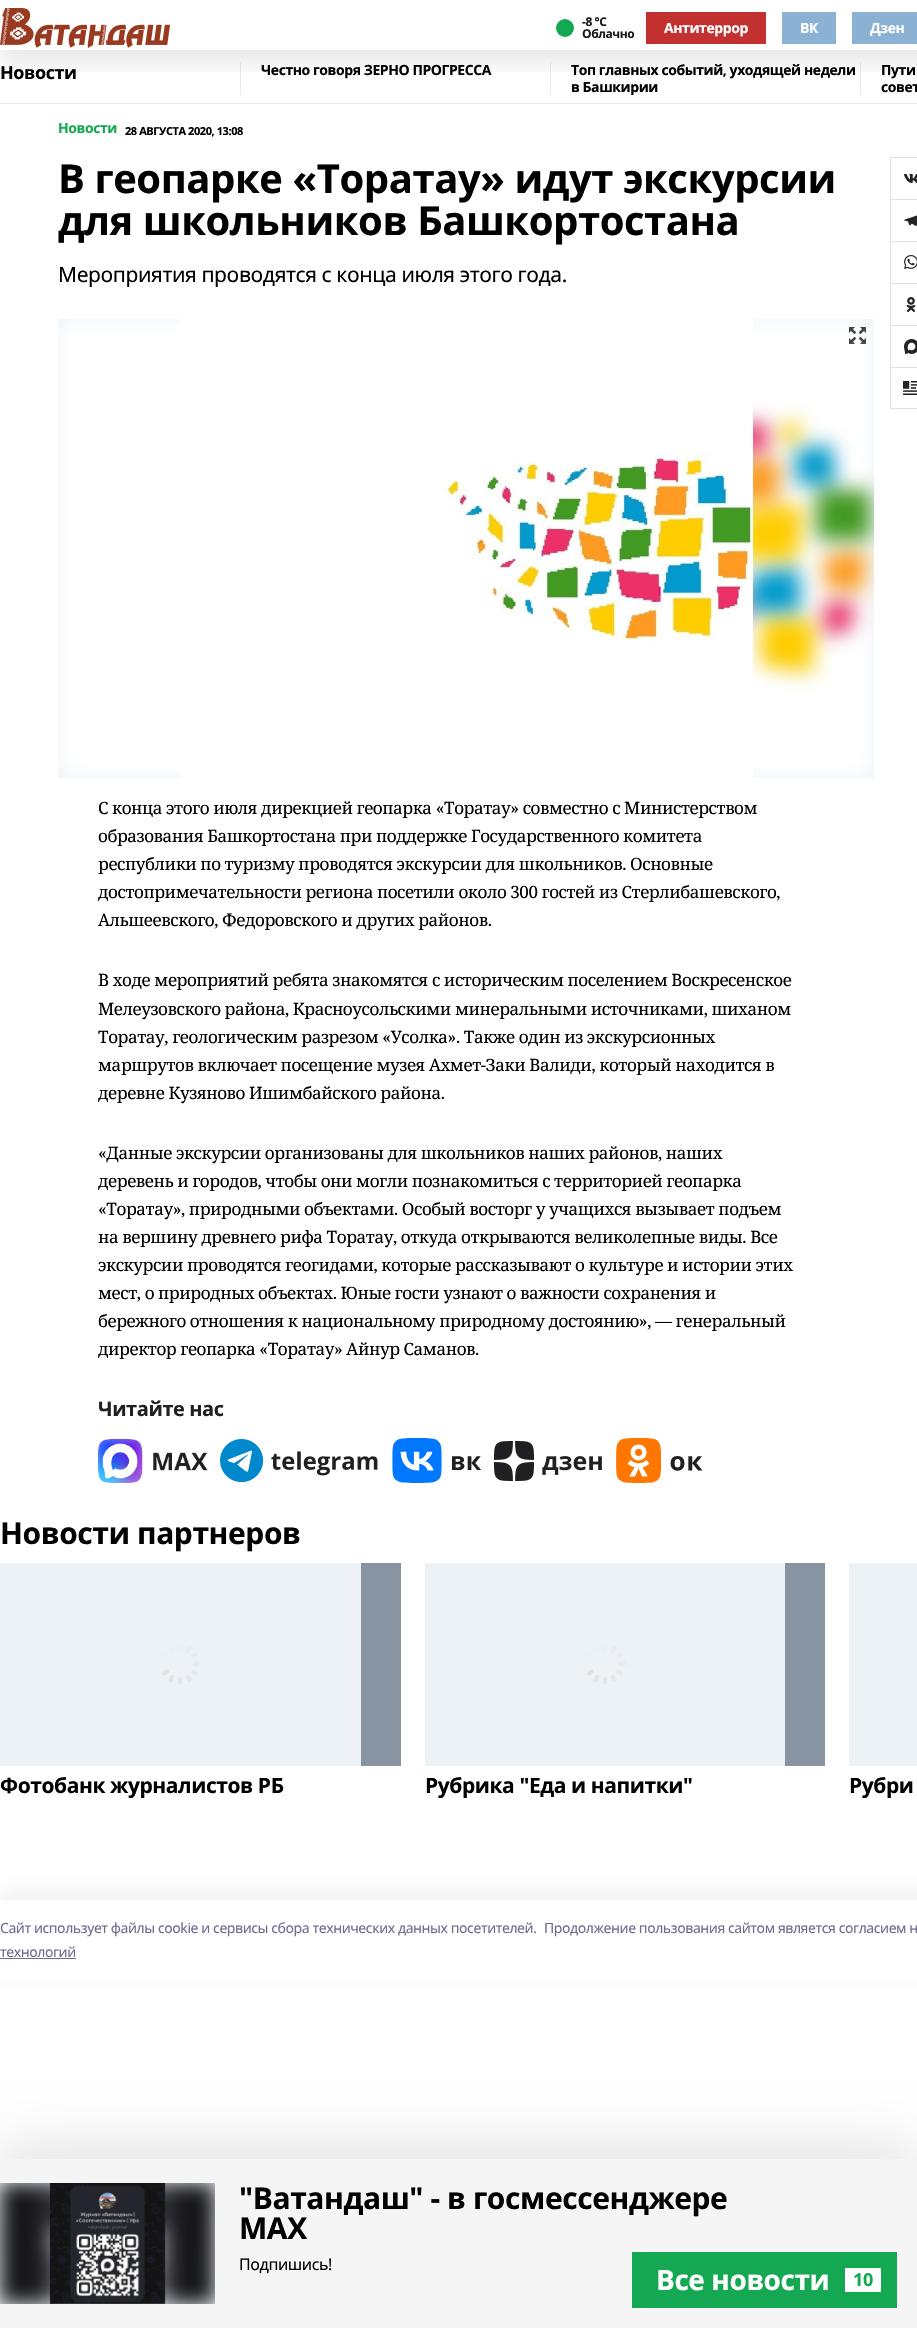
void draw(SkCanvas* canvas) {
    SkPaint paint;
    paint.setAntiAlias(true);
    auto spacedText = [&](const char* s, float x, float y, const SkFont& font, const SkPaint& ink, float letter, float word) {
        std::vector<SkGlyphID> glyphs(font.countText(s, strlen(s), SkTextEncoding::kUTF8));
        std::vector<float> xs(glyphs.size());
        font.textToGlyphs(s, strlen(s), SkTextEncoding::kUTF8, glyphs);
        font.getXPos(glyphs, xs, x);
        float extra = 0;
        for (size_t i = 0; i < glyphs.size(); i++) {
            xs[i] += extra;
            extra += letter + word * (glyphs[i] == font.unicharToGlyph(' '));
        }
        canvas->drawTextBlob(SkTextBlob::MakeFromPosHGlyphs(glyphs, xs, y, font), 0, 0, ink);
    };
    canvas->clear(0xFFFFFFFF);
    paint.setColor(0xFFEAEAEA);
    canvas->drawRect(SkRect::MakeXYWH(240, 62, 1, 33), paint);
    canvas->drawRect(SkRect::MakeXYWH(550, 62, 1, 33), paint);
    canvas->drawRect(SkRect::MakeXYWH(860, 62, 1, 33), paint);
    canvas->save();
    canvas->clipRect(SkRect::MakeXYWH(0, 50, 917, 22));
    paint.setColor(0x14000000);
    paint.setMaskFilter(SkMaskFilter::MakeBlur(kNormal_SkBlurStyle, 10));
    canvas->drawRect(SkRect::MakeXYWH(0, 15, 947, 50), paint);
    paint.setMaskFilter(nullptr);
    canvas->restore();
    canvas->drawImageRect(SkImages::DeferredFromEncodedData(SkData::MakeFromFileName("img1.png")), SkRect::MakeXYWH(0, 8, 170, 40), SkSamplingOptions());
    paint.setColor(0xFF14A852);
    canvas->drawCircle(565, 28, 9, paint);
    SkFont font1(fontMgr->matchFamilyStyle("Noto Sans", SkFontStyle::Bold()), 12);
    font1.setSubpixel(true);
    paint.setColor(0xFF1A1A1A);
    spacedText("-8 °С", 582, 26, font1, paint, -0.42f, 0);
    spacedText("Облачно", 582, 38, font1, paint, -0.42f, 0);
    paint.setColor(0xFFC23030);
    canvas->drawRect(SkRect::MakeXYWH(646, 12, 120, 32), paint);
    SkFont font2(fontMgr->matchFamilyStyle("Noto Sans", SkFontStyle::Bold()), 14);
    font2.setSubpixel(true);
    paint.setColor(0xFFFFFFFF);
    spacedText("Антитеррор", 664, 33, font2, paint, -0.42f, 0);
    paint.setColor(0xFF8BB1D4);
    canvas->drawRect(SkRect::MakeXYWH(782, 12, 54, 32), paint);
    paint.setColor(0xFFFFFFFF);
    spacedText("ВК", 800, 33, font2, paint, -0.42f, 0);
    paint.setColor(0xFF8BB1D4);
    canvas->drawRect(SkRect::MakeXYWH(852, 12, 65, 32), paint);
    paint.setColor(0xFFFFFFFF);
    spacedText("Дзен", 870, 33, font2, paint, -0.42f, 0);
    paint.setColor(0xFFEAEAEA);
    canvas->drawRect(SkRect::MakeXYWH(0, 103, 917, 1), paint);
    SkFont font3(fontMgr->matchFamilyStyle("Noto Sans", SkFontStyle::Bold()), 18);
    font3.setSubpixel(true);
    paint.setColor(0xFF000000);
    spacedText("Новости", 0, 79, font3, paint, -0.42f, 0);
    spacedText("Честно говоря ЗЕРНО ПРОГРЕССА", 261, 75, font2, paint, -0.42f, 0);
    spacedText("Топ главных событий, уходящей недели", 571, 75, font2, paint, -0.42f, 0);
    canvas->save();
    canvas->clipRect(SkRect::MakeXYWH(551, 62, 309, 33));
    spacedText("в Башкирии", 571, 92, font2, paint, -0.42f, 0);
    canvas->restore();
    spacedText("Пути", 881, 75, font2, paint, -0.42f, 0);
    spacedText("совет", 881, 92, font2, paint, -0.42f, 0);
    paint.setColor(0xFF14A852);
    spacedText("Новости", 58, 133, font2, paint, -0.42f, 0);
    SkFont font4(fontMgr->matchFamilyStyle("Noto Sans", SkFontStyle::Bold()), 11);
    font4.setSubpixel(true);
    paint.setColor(0xFF000000);
    spacedText("28 АВГУСТА 2020, 13:08", 125, 135, font4, paint, -0.42f, 0);
    SkFont font5(fontMgr->matchFamilyStyle("Noto Sans", SkFontStyle::Bold()), 40);
    font5.setSubpixel(true);
    spacedText("В геопарке «Торатау» идут экскурсии", 58, 193, font5, paint, -0.42f, 0);
    spacedText("для школьников Башкортостана", 58, 235, font5, paint, -0.42f, 0);
    SkFont font6(fontMgr->matchFamilyStyle("Noto Sans", SkFontStyle::Normal()), 21);
    font6.setSubpixel(true);
    spacedText("Мероприятия проводятся с конца июля этого года.", 58, 282, font6, paint, -0.42f, 0);
    paint.setColor(0xFFEDF2F7);
    canvas->drawRect(SkRect::MakeXYWH(58, 319, 816, 459), paint);
    canvas->drawImageRect(SkImages::DeferredFromEncodedData(SkData::MakeFromFileName("img2.png")), SkRect::MakeXYWH(58, 319, 816, 459), SkSamplingOptions());
    canvas->drawImageRect(SkImages::DeferredFromEncodedData(SkData::MakeFromFileName("img3.png")), SkRect::MakeXYWH(179, 319, 574, 459), SkSamplingOptions());
    canvas->drawImageRect(SkImages::DeferredFromEncodedData(SkData::MakeFromFileName("img4.png")), SkRect::MakeXYWH(849, 327, 17, 17), SkSamplingOptions());
    SkFont font7(fontMgr->matchFamilyStyle("Noto Serif", SkFontStyle::Normal()), 17);
    font7.setSubpixel(true);
    paint.setColor(0xFF000000);
    spacedText("С конца этого июля дирекцией геопарка «Торатау» совместно с Министерством", 98, 814, font7, paint, -0.42f, 0);
    spacedText("образования Башкортостана при поддержке Государственного комитета", 98, 842, font7, paint, -0.42f, 0);
    spacedText("республики по туризму проводятся экскурсии для школьников. Основные", 98, 870, font7, paint, -0.42f, 0);
    spacedText("достопримечательности региона посетили около 300 гостей из Стерлибашевского,", 98, 898, font7, paint, -0.42f, 0);
    spacedText("Альшеевского, Федоровского и других районов.", 98, 926, font7, paint, -0.42f, 0);
    spacedText("В ходе мероприятий ребята знакомятся с историческим поселением Воскресенское", 98, 986, font7, paint, -0.42f, 0);
    spacedText("Мелеузовского района, Красноусольскими минеральными источниками, шиханом", 98, 1015, font7, paint, -0.42f, 0);
    spacedText("Торатау, геологическим разрезом «Усолка». Также один из экскурсионных", 98, 1043, font7, paint, -0.42f, 0);
    spacedText("маршрутов включает посещение музея Ахмет-Заки Валиди, который находится в", 98, 1071, font7, paint, -0.42f, 0);
    spacedText("деревне Кузяново Ишимбайского района.", 98, 1099, font7, paint, -0.42f, 0);
    spacedText("«Данные экскурсии организованы для школьников наших районов, наших", 98, 1159, font7, paint, -0.42f, 0);
    spacedText("деревень и городов, чтобы они могли познакомиться с территорией геопарка", 98, 1187, font7, paint, -0.42f, 0);
    spacedText("«Торатау», природными объектами. Особый восторг у учащихся вызывает подъем", 98, 1215, font7, paint, -0.42f, 0);
    spacedText("на вершину древнего рифа Торатау, откуда открываются великолепные виды. Все", 98, 1243, font7, paint, -0.42f, 0);
    spacedText("экскурсии проводятся геогидами, которые рассказывают о культуре и истории этих", 98, 1271, font7, paint, -0.42f, 0);
    spacedText("мест, о природных объектах. Юные гости узнают о важности сохранения и", 98, 1299, font7, paint, -0.42f, 0);
    spacedText("бережного отношения к национальному природному достоянию», — генеральный", 98, 1327, font7, paint, -0.42f, 0);
    spacedText("директор геопарка «Торатау» Айнур Саманов.", 98, 1355, font7, paint, -0.42f, 0);
    SkFont font8(fontMgr->matchFamilyStyle("Noto Sans", SkFontStyle::Bold()), 20);
    font8.setSubpixel(true);
    paint.setColor(0xFF202022);
    spacedText("Читайте нас", 98, 1416, font8, paint, -0.42f, 0);
    canvas->drawImageRect(SkImages::DeferredFromEncodedData(SkData::MakeFromFileName("img5.png")), SkRect::MakeXYWH(98, 1439, 110, 44), SkSamplingOptions());
    canvas->drawImageRect(SkImages::DeferredFromEncodedData(SkData::MakeFromFileName("img6.png")), SkRect::MakeXYWH(220, 1439, 158, 43), SkSamplingOptions());
    canvas->drawImageRect(SkImages::DeferredFromEncodedData(SkData::MakeFromFileName("img7.png")), SkRect::MakeXYWH(392, 1438, 89, 45), SkSamplingOptions());
    canvas->drawImageRect(SkImages::DeferredFromEncodedData(SkData::MakeFromFileName("img8.png")), SkRect::MakeXYWH(494, 1441, 108, 40), SkSamplingOptions());
    canvas->drawImageRect(SkImages::DeferredFromEncodedData(SkData::MakeFromFileName("img9.png")), SkRect::MakeXYWH(616, 1438, 87, 45), SkSamplingOptions());
    canvas->drawImageRect(SkImages::DeferredFromEncodedData(SkData::MakeFromFileName("img10.png")), SkRect::MakeXYWH(904, 174, 13, 9), SkSamplingOptions());
    paint.setColor(0xFFE2E2E2);
    canvas->drawRect(SkRect::MakeXYWH(890, 157, 27, 1), paint);
    canvas->drawRect(SkRect::MakeXYWH(890, 157, 1, 42), paint);
    canvas->drawImageRect(SkImages::DeferredFromEncodedData(SkData::MakeFromFileName("img11.png")), SkRect::MakeXYWH(904, 215, 13, 11), SkSamplingOptions());
    canvas->drawRect(SkRect::MakeXYWH(890, 199, 27, 1), paint);
    canvas->drawRect(SkRect::MakeXYWH(890, 199, 1, 42), paint);
    canvas->drawImageRect(SkImages::DeferredFromEncodedData(SkData::MakeFromFileName("img12.png")), SkRect::MakeXYWH(904, 255, 13, 14), SkSamplingOptions());
    canvas->drawRect(SkRect::MakeXYWH(890, 241, 27, 1), paint);
    canvas->drawRect(SkRect::MakeXYWH(890, 241, 1, 42), paint);
    canvas->drawImageRect(SkImages::DeferredFromEncodedData(SkData::MakeFromFileName("img13.png")), SkRect::MakeXYWH(906, 297, 10, 15), SkSamplingOptions());
    canvas->drawRect(SkRect::MakeXYWH(890, 283, 27, 1), paint);
    canvas->drawRect(SkRect::MakeXYWH(890, 283, 1, 42), paint);
    canvas->drawImageRect(SkImages::DeferredFromEncodedData(SkData::MakeFromFileName("img14.png")), SkRect::MakeXYWH(904, 339, 13, 15), SkSamplingOptions());
    canvas->drawRect(SkRect::MakeXYWH(890, 325, 27, 1), paint);
    canvas->drawRect(SkRect::MakeXYWH(890, 325, 1, 42), paint);
    canvas->drawImageRect(SkImages::DeferredFromEncodedData(SkData::MakeFromFileName("img15.png")), SkRect::MakeXYWH(903, 381, 14, 14), SkSamplingOptions());
    paint.setStyle(SkPaint::kStroke_Style);
    paint.setStrokeWidth(1);
    canvas->drawRect(SkRect::MakeXYWH(890.5f, 367.5f, 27, 41), paint);
    SkFont font9(fontMgr->matchFamilyStyle("Noto Sans", SkFontStyle::Bold()), 30);
    font9.setSubpixel(true);
    paint.setStyle(SkPaint::kFill_Style);
    paint.setColor(0xFF000000);
    spacedText("Новости партнеров", 0, 1544, font9, paint, -0.42f, 0);
    paint.setColor(0xFF8894A2);
    canvas->drawRect(SkRect::MakeXYWH(361, 1563, 40, 203), paint);
    paint.setColor(0xFFEDF2F7);
    canvas->drawRect(SkRect::MakeXYWH(0, 1563, 361, 203), paint);
    canvas->drawImageRect(SkImages::DeferredFromEncodedData(SkData::MakeFromFileName("img16.png")), SkRect::MakeXYWH(162, 1646, 39, 39), SkSamplingOptions());
    SkFont font10(fontMgr->matchFamilyStyle("Noto Sans", SkFontStyle::Bold()), 21);
    font10.setSubpixel(true);
    paint.setColor(0xFF000000);
    spacedText("Фотобанк журналистов РБ", 0, 1793, font10, paint, -0.42f, 0);
    paint.setColor(0xFF8894A2);
    canvas->drawRect(SkRect::MakeXYWH(785, 1563, 40, 203), paint);
    paint.setColor(0xFFEDF2F7);
    canvas->drawRect(SkRect::MakeXYWH(425, 1563, 360, 203), paint);
    canvas->drawImageRect(SkImages::DeferredFromEncodedData(SkData::MakeFromFileName("img16.png")), SkRect::MakeXYWH(587, 1646, 39, 39), SkSamplingOptions());
    paint.setColor(0xFF000000);
    spacedText("Рубрика \"Еда и напитки\"", 425, 1793, font10, paint, -0.42f, 0);
    paint.setColor(0xFFEDF2F7);
    canvas->drawRect(SkRect::MakeXYWH(849, 1563, 68, 203), paint);
    paint.setColor(0xFF000000);
    spacedText("Рубри", 849, 1793, font10, paint, -0.42f, 0);
    paint.setColor(0x1F000000);
    paint.setMaskFilter(SkMaskFilter::MakeBlur(kNormal_SkBlurStyle, 30));
    canvas->drawRect(SkRect::MakeXYWH(0, 2149, 917, 169), paint);
    paint.setMaskFilter(nullptr);
    paint.setColor(0xFFF5F5F5);
    canvas->drawRect(SkRect::MakeXYWH(0, 2159, 917, 169), paint);
    paint.setColor(0xFF14A852);
    canvas->drawRect(SkRect::MakeXYWH(632, 2252, 265, 56), paint);
    SkFont font11(fontMgr->matchFamilyStyle("Noto Sans", SkFontStyle::Bold()), 28);
    font11.setSubpixel(true);
    paint.setColor(0xFFFFFFFF);
    spacedText("Все новости", 656, 2290, font11, paint, -0.42f, 0);
    canvas->drawRect(SkRect::MakeXYWH(845, 2268, 36, 24), paint);
    paint.setColor(0xFF14A852);
    spacedText("10", 853, 2286, font3, paint, -0.42f, 0);
    canvas->save();
    canvas->clipPath(SkPathBuilder(SkPathFillType::kEvenOdd).moveTo(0, 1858).lineTo(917, 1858).lineTo(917, 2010).lineTo(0, 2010).close().moveTo(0, 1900).lineTo(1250, 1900).lineTo(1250, 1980).lineTo(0, 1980).close().detach(), true);
    paint.setColor(0x1414142B);
    paint.setMaskFilter(SkMaskFilter::MakeBlur(kNormal_SkBlurStyle, 11.5f));
    canvas->drawRect(SkRect::MakeXYWH(0, 1894, 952, 80), paint);
    paint.setMaskFilter(nullptr);
    canvas->restore();
    SkFont font12(fontMgr->matchFamilyStyle("Noto Sans", SkFontStyle::Normal()), 14);
    font12.setSubpixel(true);
    paint.setColor(0xFF6F6C90);
    spacedText("Cайт использует файлы cookie и сервисы сбора технических данных посетителей.", 0, 1933, font12, paint, -0.42f, 0);
    spacedText("Продолжение пользования сайтом является согласием н", 544, 1933, font12, paint, -0.42f, 0);
    spacedText("технологий", 0, 1957, font12, paint, -0.42f, 0);
    canvas->drawRect(SkRect::MakeXYWH(0, 1958, 76, 1), paint);
    paint.setColor(0xFFEDF2F7);
    canvas->drawRect(SkRect::MakeXYWH(0, 2183, 215, 121), paint);
    canvas->drawImageRect(SkImages::DeferredFromEncodedData(SkData::MakeFromFileName("img17.png")), SkRect::MakeXYWH(0, 2183, 215, 121), SkSamplingOptions());
    canvas->drawImageRect(SkImages::DeferredFromEncodedData(SkData::MakeFromFileName("img18.png")), SkRect::MakeXYWH(49, 2183, 117, 121), SkSamplingOptions());
    paint.setColor(0xFF000000);
    spacedText("\"Ватандаш\" - в госмессенджере", 239, 2209, font9, paint, -0.42f, 0);
    spacedText("МАХ", 239, 2239, font9, paint, -0.42f, 0);
    SkFont font13(fontMgr->matchFamilyStyle("Noto Sans", SkFontStyle::Normal()), 16);
    font13.setSubpixel(true);
    spacedText("Подпишись!", 239, 2270, font13, paint, -0.42f, 0);
}
